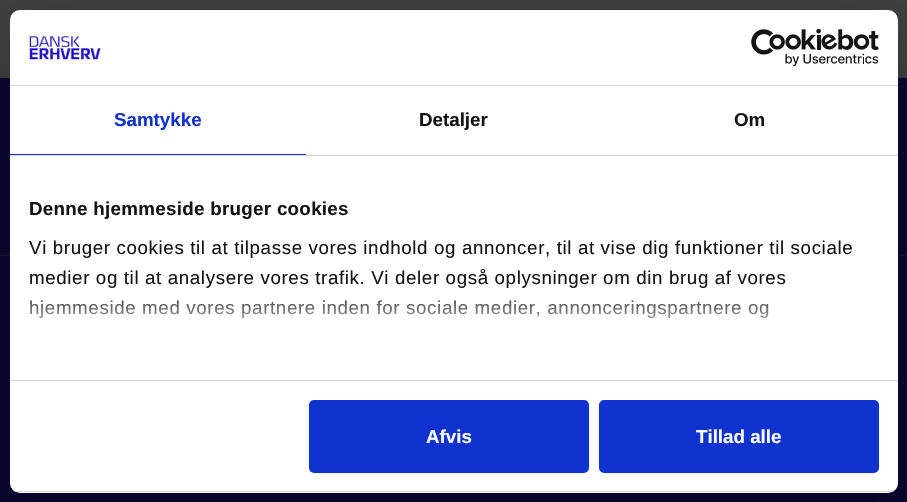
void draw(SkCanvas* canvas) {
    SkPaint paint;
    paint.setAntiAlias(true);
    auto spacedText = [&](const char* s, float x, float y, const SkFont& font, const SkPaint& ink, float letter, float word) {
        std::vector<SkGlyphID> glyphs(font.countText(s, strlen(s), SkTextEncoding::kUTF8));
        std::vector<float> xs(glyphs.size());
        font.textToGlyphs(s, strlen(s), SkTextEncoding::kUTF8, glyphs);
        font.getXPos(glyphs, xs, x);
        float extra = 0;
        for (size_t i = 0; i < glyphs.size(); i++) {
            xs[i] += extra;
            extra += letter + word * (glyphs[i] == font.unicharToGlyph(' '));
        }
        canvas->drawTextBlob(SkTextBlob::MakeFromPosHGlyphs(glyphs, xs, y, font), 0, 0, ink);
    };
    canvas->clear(0xFF0B0633);
    paint.setColor(0xFF404040);
    canvas->drawRect(SkRect::MakeXYWH(0, 0, 907, 78), paint);
    paint.setColor(0xFF181536);
    canvas->drawRect(SkRect::MakeXYWH(0, 255, 907, 1), paint);
    paint.setColor(0x4D000000);
    paint.setMaskFilter(SkMaskFilter::MakeBlur(kNormal_SkBlurStyle, 42.5f));
    canvas->drawRoundRect(SkRect::MakeXYWH(10, 50, 888, 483), 10, 10, paint);
    paint.setMaskFilter(nullptr);
    paint.setColor(0xFFFFFFFF);
    canvas->drawRoundRect(SkRect::MakeXYWH(10, 10, 888, 483), 10, 10, paint);
    paint.setColor(0xFFD6D6D6);
    canvas->drawRect(SkRect::MakeXYWH(10, 85, 888, 1), paint);
    canvas->drawImageRect(SkImages::DeferredFromEncodedData(SkData::MakeFromFileName("img1.png")), SkRect::MakeXYWH(29, 36, 72, 24), SkSamplingOptions());
    canvas->drawImageRect(SkImages::DeferredFromEncodedData(SkData::MakeFromFileName("img2.png")), SkRect::MakeXYWH(751, 29, 128, 37), SkSamplingOptions());
    canvas->drawRect(SkRect::MakeXYWH(10, 155, 888, 1), paint);
    paint.setColor(0xFF1032CF);
    canvas->drawRect(SkRect::MakeXYWH(10, 154, 296, 1), paint);
    SkFont font1(fontMgr->matchFamilyStyle("Liberation Sans", SkFontStyle::Bold()), 18.75f);
    font1.setSubpixel(true);
    canvas->drawString("Samtykke", 114, 126, font1, paint);
    paint.setColor(0xFF141414);
    canvas->drawString("Detaljer", 419, 126, font1, paint);
    canvas->drawString("Om", 734, 126, font1, paint);
    paint.setColor(0xFFD6D6D6);
    canvas->drawRect(SkRect::MakeXYWH(10, 380, 888, 1), paint);
    paint.setColor(0xFF141414);
    spacedText("Denne hjemmeside bruger cookies", 29, 215, font1, paint, 0.3f, 0);
    SkFont font2(fontMgr->matchFamilyStyle("Liberation Sans", SkFontStyle::Normal()), 18.75f);
    font2.setSubpixel(true);
    spacedText("Vi bruger cookies til at tilpasse vores indhold og annoncer, til at vise dig funktioner til sociale", 29, 254, font2, paint, 0.62f, 0);
    spacedText("medier og til at analysere vores trafik. Vi deler også oplysninger om din brug af vores", 29, 284, font2, paint, 0.62f, 0);
    spacedText("hjemmeside med vores partnere inden for sociale medier, annonceringspartnere og", 29, 314, font2, paint, 0.62f, 0);
    {
        const SkColor colors[] = {0xFFFFFFFF, 0xCCFFFFFF, 0x00FFFFFF};
        const float stops[] = {0, 0.5f, 1};
        const SkPoint ends[] = {{446, 380}, {446, 286}};
        paint.setShader(SkGradientShader::MakeLinear(ends, colors, stops, 3, SkTileMode::kClamp));
        paint.setAlpha(255);
    }
    canvas->drawRect(SkRect::MakeXYWH(30, 287, 739, 31), paint);
    canvas->save();
    canvas->clipPath(SkPathBuilder().moveTo(20, 10).lineTo(888, 10).cubicTo(893.5f, 10, 898, 14.5f, 898, 20).lineTo(898, 483).cubicTo(898, 488.5f, 893.5f, 493, 888, 493).lineTo(20, 493).cubicTo(14.5f, 493, 10, 488.5f, 10, 483).lineTo(10, 20).cubicTo(10, 14.5f, 14.5f, 10, 20, 10).close().detach(), true);
    paint.setShader(nullptr);
    paint.setColor(0xFFD6D6D6);
    canvas->drawRect(SkRect::MakeXYWH(10, 491, 888, 1), paint);
    canvas->restore();
    paint.setColor(0xFF1032CF);
    canvas->drawRoundRect(SkRect::MakeXYWH(310.5f, 401.5f, 277, 70), 3.5f, 3.5f, paint);
    paint.setStyle(SkPaint::kStroke_Style);
    paint.setStrokeWidth(3);
    canvas->drawRoundRect(SkRect::MakeXYWH(310.5f, 401.5f, 277, 70), 3.5f, 3.5f, paint);
    paint.setStyle(SkPaint::kFill_Style);
    paint.setColor(0xFFFFFFFF);
    canvas->drawString("Afvis", 426, 443, font1, paint);
    paint.setColor(0xFF1032CF);
    canvas->drawRoundRect(SkRect::MakeXYWH(600.5f, 401.5f, 277, 70), 3.5f, 3.5f, paint);
    paint.setStyle(SkPaint::kStroke_Style);
    canvas->drawRoundRect(SkRect::MakeXYWH(600.5f, 401.5f, 277, 70), 3.5f, 3.5f, paint);
    paint.setStyle(SkPaint::kFill_Style);
    paint.setColor(0xFFFFFFFF);
    canvas->drawString("Tillad alle", 696, 443, font1, paint);
}
